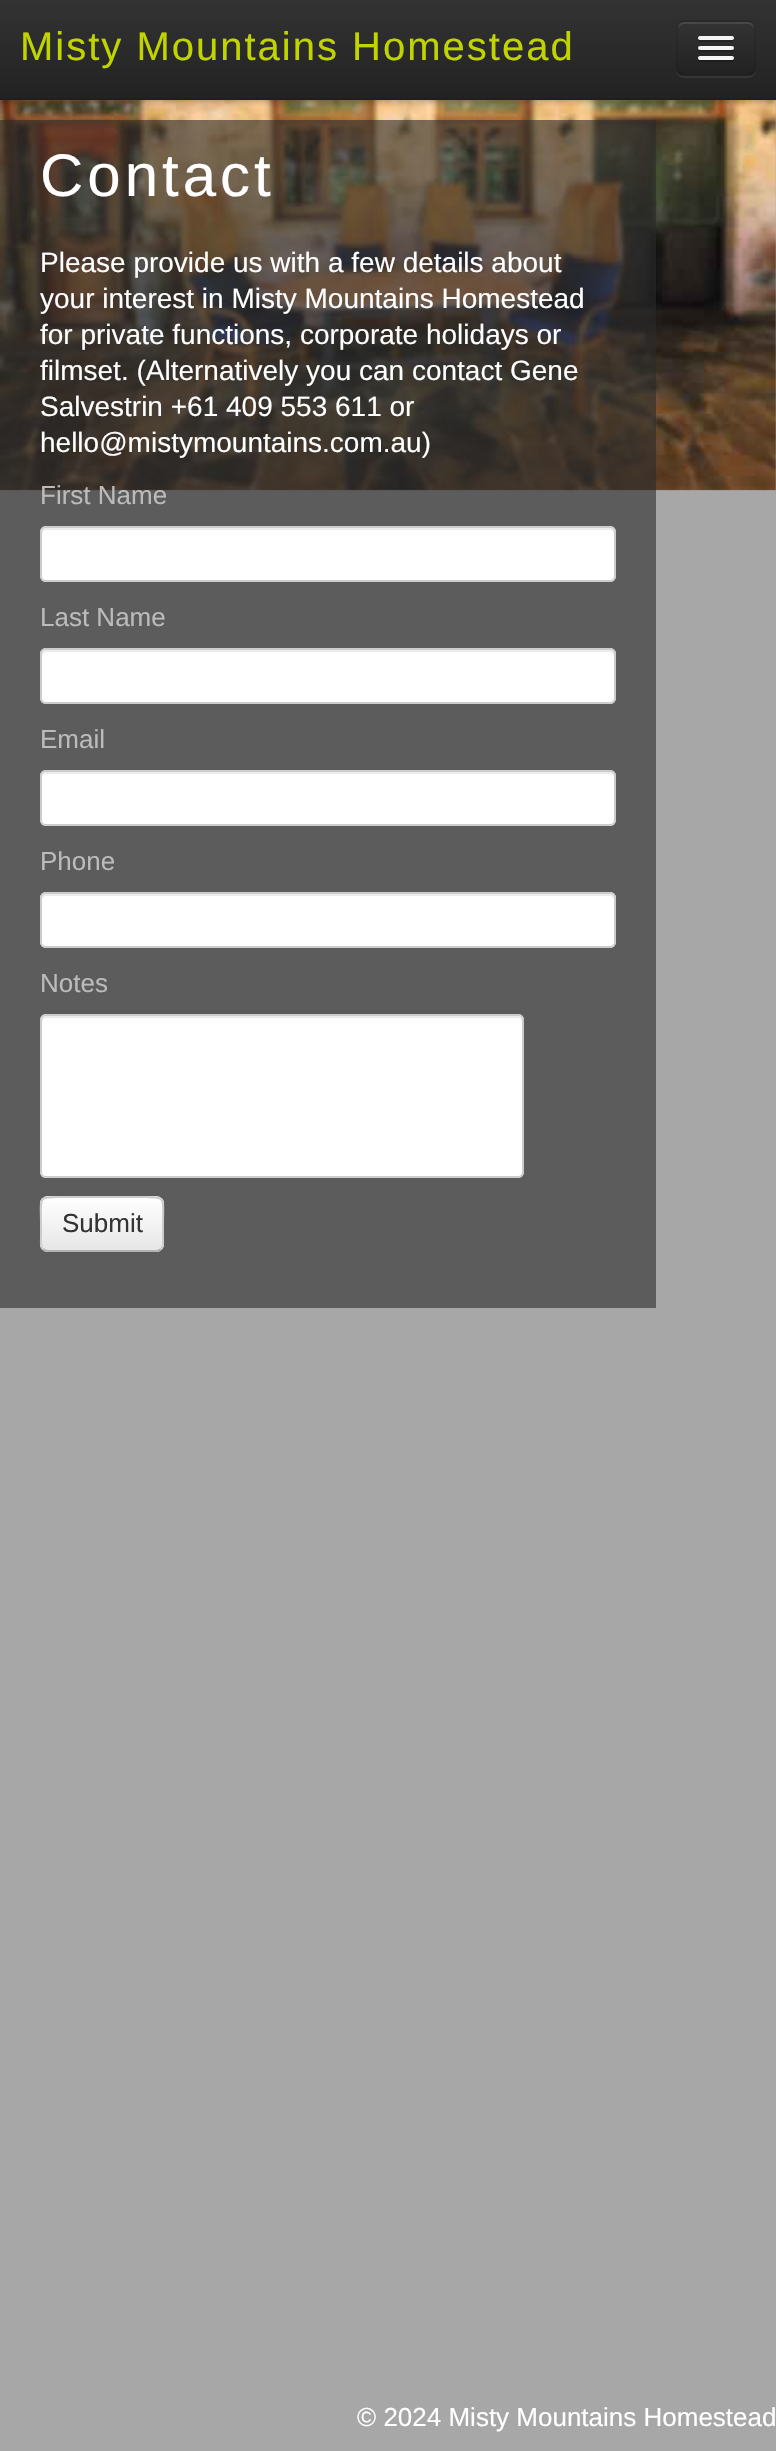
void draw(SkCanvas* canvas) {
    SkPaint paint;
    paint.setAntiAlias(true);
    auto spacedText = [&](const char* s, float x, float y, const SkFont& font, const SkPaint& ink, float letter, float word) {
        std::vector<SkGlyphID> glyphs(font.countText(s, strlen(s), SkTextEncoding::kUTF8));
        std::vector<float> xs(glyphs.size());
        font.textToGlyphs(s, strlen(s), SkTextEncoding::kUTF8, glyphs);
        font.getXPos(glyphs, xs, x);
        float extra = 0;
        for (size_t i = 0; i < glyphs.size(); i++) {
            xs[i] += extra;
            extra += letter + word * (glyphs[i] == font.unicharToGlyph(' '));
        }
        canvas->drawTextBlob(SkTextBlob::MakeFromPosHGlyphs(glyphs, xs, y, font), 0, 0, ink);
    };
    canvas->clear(0xFFA7A7A7);
    canvas->drawImageRect(SkImages::DeferredFromEncodedData(SkData::MakeFromFileName("img1.png")), SkRect::MakeXYWH(0, 100, 776, 391), SkSamplingOptions());
    paint.setColor(0x40000000);
    paint.setMaskFilter(SkMaskFilter::MakeBlur(kNormal_SkBlurStyle, 3));
    canvas->drawRect(SkRect::MakeXYWH(0, 2, 776, 100), paint);
    paint.setMaskFilter(nullptr);
    {
        const SkColor colors[] = {0xFF333333, 0xFF222222};
        const float stops[] = {0, 1};
        const SkPoint ends[] = {{388, 0}, {388, 100}};
        paint.setShader(SkGradientShader::MakeLinear(ends, colors, stops, 2, SkTileMode::kClamp));
        paint.setAlpha(255);
    }
    canvas->drawRect(SkRect::MakeXYWH(0, 0, 776, 98), paint);
    paint.setShader(nullptr);
    paint.setColor(0xFF1F1F1F);
    canvas->drawRect(SkRect::MakeXYWH(0, 98, 776, 2), paint);
    SkFont font1(fontMgr->matchFamilyStyle("Liberation Sans", SkFontStyle::Normal()), 40);
    font1.setSubpixel(true);
    paint.setColor(0xFFBFD400);
    spacedText("Misty Mountains Homestead", 20, 60, font1, paint, 2, 0);
    paint.setColor(0xFF363636);
    canvas->drawPath(SkPathBuilder().moveTo(676, 68).cubicTo(676, 80, 685, 78, 695, 78).lineTo(737, 78).cubicTo(747, 78, 756, 80, 756, 68).cubicTo(756, 72, 752, 76, 748, 76).lineTo(684, 76).cubicTo(680, 76, 676, 72, 676, 68).close().detach(), paint);
    paint.setColor(0xFF2C2C2C);
    canvas->drawRoundRect(SkRect::MakeXYWH(676, 20, 80, 56), 8, 8, paint);
    canvas->save();
    canvas->clipPath(SkPathBuilder().moveTo(684, 20).lineTo(748, 20).cubicTo(752.5f, 20, 756, 23.5f, 756, 28).lineTo(756, 68).cubicTo(756, 72.5f, 752.5f, 76, 748, 76).lineTo(684, 76).cubicTo(679.5f, 76, 676, 72.5f, 676, 68).lineTo(676, 28).cubicTo(676, 23.5f, 679.5f, 20, 684, 20).close().detach(), true);
    {
        const SkColor colors[] = {0xFF333333, 0xFF222222};
        const float stops[] = {0, 1};
        const SkPoint ends[] = {{716, 22}, {716, 74}};
        paint.setShader(SkGradientShader::MakeLinear(ends, colors, stops, 2, SkTileMode::kClamp));
        paint.setAlpha(255);
    }
    canvas->drawRect(SkRect::MakeXYWH(676, 22, 80, 52), paint);
    canvas->restore();
    paint.setShader(nullptr);
    paint.setColor(0xFF474747);
    canvas->drawPath(SkPathBuilder().moveTo(684, 24).lineTo(748, 24).cubicTo(751, 24, 754, 27, 754, 30).cubicTo(754, 20, 746, 22, 737, 22).lineTo(695, 22).cubicTo(686, 22, 678, 20, 678, 30).cubicTo(678, 27, 681, 24, 684, 24).close().detach(), paint);
    paint.setStyle(SkPaint::kStroke_Style);
    paint.setStrokeWidth(2);
    paint.setColor(0x40000000);
    canvas->drawPath(SkPathBuilder().moveTo(753, 73).cubicTo(751.5f, 74.5f, 750, 75, 748, 75).lineTo(684, 75).cubicTo(682, 75, 680.5f, 74.5f, 679, 73).detach(), paint);
    paint.setColor(0x1A000000);
    canvas->drawPath(SkPathBuilder().moveTo(679, 73).cubicTo(677.5f, 71.5f, 677, 70, 677, 68).lineTo(677, 28).cubicTo(677, 26, 677.5f, 24.5f, 679, 23).cubicTo(680.5f, 21.5f, 682, 21, 684, 21).lineTo(748, 21).cubicTo(750, 21, 751.5f, 21.5f, 753, 23).cubicTo(754.5f, 24.5f, 755, 26, 755, 28).lineTo(755, 68).cubicTo(755, 70, 754.5f, 71.5f, 753, 73).detach(), paint);
    paint.setStyle(SkPaint::kFill_Style);
    paint.setColor(0xFF222222);
    canvas->drawPath(SkPathBuilder().moveTo(698.5f, 39).cubicTo(696, 43, 705, 42, 705.5f, 42).lineTo(726.5f, 42).cubicTo(727, 42, 736, 43, 733.5f, 39).cubicTo(733.5f, 39.5f, 732.5f, 40, 732, 40).lineTo(700, 40).cubicTo(699.5f, 40, 698.5f, 39.5f, 698.5f, 39).close().detach(), paint);
    paint.setColor(0xFFF5F5F5);
    canvas->drawRoundRect(SkRect::MakeXYWH(698, 36, 36, 4), 2, 2, paint);
    paint.setColor(0xFF1F1F1F);
    canvas->drawPath(SkPathBuilder().moveTo(698.5f, 49).cubicTo(696, 53, 705, 52, 705.5f, 52).lineTo(726.5f, 52).cubicTo(727, 52, 736, 53, 733.5f, 49).cubicTo(733.5f, 49.5f, 732.5f, 50, 732, 50).lineTo(700, 50).cubicTo(699.5f, 50, 698.5f, 49.5f, 698.5f, 49).close().detach(), paint);
    paint.setColor(0xFFF5F5F5);
    canvas->drawRoundRect(SkRect::MakeXYWH(698, 46, 36, 4), 2, 2, paint);
    paint.setColor(0xFF1D1D1D);
    canvas->drawPath(SkPathBuilder().moveTo(698.5f, 59).cubicTo(696, 63, 705, 62, 705.5f, 62).lineTo(726.5f, 62).cubicTo(727, 62, 736, 63, 733.5f, 59).cubicTo(733.5f, 59.5f, 732.5f, 60, 732, 60).lineTo(700, 60).cubicTo(699.5f, 60, 698.5f, 59.5f, 698.5f, 59).close().detach(), paint);
    paint.setColor(0xFFF5F5F5);
    canvas->drawRoundRect(SkRect::MakeXYWH(698, 56, 36, 4), 2, 2, paint);
    paint.setColor(0x992A2A2A);
    canvas->drawRect(SkRect::MakeXYWH(0, 120, 656, 1188), paint);
    SkFont font2(fontMgr->matchFamilyStyle("Liberation Sans", SkFontStyle::Normal()), 60);
    font2.setSubpixel(true);
    paint.setColor(0xFFFFFFFF);
    spacedText("Contact", 40, 196, font2, paint, 4, 0);
    SkFont font3(fontMgr->matchFamilyStyle("Liberation Sans", SkFontStyle::Normal()), 28);
    font3.setSubpixel(true);
    canvas->drawString("Please provide us with a few details about", 40, 272, font3, paint);
    canvas->drawString("your interest in Misty Mountains Homestead", 40, 308, font3, paint);
    canvas->drawString("for private functions, corporate holidays or", 40, 344, font3, paint);
    canvas->drawString("filmset. (Alternatively you can contact Gene", 40, 380, font3, paint);
    canvas->drawString("Salvestrin +61 409 553 611 or", 40, 416, font3, paint);
    canvas->drawString("hello@mistymountains.com.au)", 40, 452, font3, paint);
    SkFont font4(fontMgr->matchFamilyStyle("Liberation Sans", SkFontStyle::Normal()), 26);
    font4.setSubpixel(true);
    paint.setColor(0xFFBBBBBB);
    canvas->drawString("First Name", 40, 504, font4, paint);
    paint.setColor(0xFFFFFFFF);
    canvas->drawRoundRect(SkRect::MakeXYWH(40, 526, 576, 56), 6, 6, paint);
    paint.setColor(0xFFECECEC);
    canvas->drawPath(SkPathBuilder().moveTo(46, 530).lineTo(610, 530).cubicTo(612, 530, 614, 532, 614, 534).cubicTo(614, 531, 614, 528, 610, 528).lineTo(46, 528).cubicTo(42, 528, 42, 531, 42, 534).cubicTo(42, 532, 44, 530, 46, 530).close().detach(), paint);
    paint.setStyle(SkPaint::kStroke_Style);
    paint.setColor(0xFFCCCCCC);
    canvas->drawRoundRect(SkRect::MakeXYWH(41, 527, 574, 54), 5, 5, paint);
    paint.setStyle(SkPaint::kFill_Style);
    paint.setColor(0xFFBBBBBB);
    canvas->drawString("Last Name", 40, 626, font4, paint);
    paint.setColor(0xFFFFFFFF);
    canvas->drawRoundRect(SkRect::MakeXYWH(40, 648, 576, 56), 6, 6, paint);
    paint.setColor(0xFFECECEC);
    canvas->drawPath(SkPathBuilder().moveTo(46, 652).lineTo(610, 652).cubicTo(612, 652, 614, 654, 614, 656).cubicTo(614, 653, 614, 650, 610, 650).lineTo(46, 650).cubicTo(42, 650, 42, 653, 42, 656).cubicTo(42, 654, 44, 652, 46, 652).close().detach(), paint);
    paint.setStyle(SkPaint::kStroke_Style);
    paint.setColor(0xFFCCCCCC);
    canvas->drawRoundRect(SkRect::MakeXYWH(41, 649, 574, 54), 5, 5, paint);
    paint.setStyle(SkPaint::kFill_Style);
    paint.setColor(0xFFBBBBBB);
    canvas->drawString("Email", 40, 748, font4, paint);
    paint.setColor(0xFFFFFFFF);
    canvas->drawRoundRect(SkRect::MakeXYWH(40, 770, 576, 56), 6, 6, paint);
    paint.setColor(0xFFECECEC);
    canvas->drawPath(SkPathBuilder().moveTo(46, 774).lineTo(610, 774).cubicTo(612, 774, 614, 776, 614, 778).cubicTo(614, 775, 614, 772, 610, 772).lineTo(46, 772).cubicTo(42, 772, 42, 775, 42, 778).cubicTo(42, 776, 44, 774, 46, 774).close().detach(), paint);
    paint.setStyle(SkPaint::kStroke_Style);
    paint.setColor(0xFFCCCCCC);
    canvas->drawRoundRect(SkRect::MakeXYWH(41, 771, 574, 54), 5, 5, paint);
    paint.setStyle(SkPaint::kFill_Style);
    paint.setColor(0xFFBBBBBB);
    canvas->drawString("Phone", 40, 870, font4, paint);
    paint.setColor(0xFFFFFFFF);
    canvas->drawRoundRect(SkRect::MakeXYWH(40, 892, 576, 56), 6, 6, paint);
    paint.setColor(0xFFECECEC);
    canvas->drawPath(SkPathBuilder().moveTo(46, 896).lineTo(610, 896).cubicTo(612, 896, 614, 898, 614, 900).cubicTo(614, 897, 614, 894, 610, 894).lineTo(46, 894).cubicTo(42, 894, 42, 897, 42, 900).cubicTo(42, 898, 44, 896, 46, 896).close().detach(), paint);
    paint.setStyle(SkPaint::kStroke_Style);
    paint.setColor(0xFFCCCCCC);
    canvas->drawRoundRect(SkRect::MakeXYWH(41, 893, 574, 54), 5, 5, paint);
    paint.setStyle(SkPaint::kFill_Style);
    paint.setColor(0xFFBBBBBB);
    canvas->drawString("Notes", 40, 992, font4, paint);
    paint.setColor(0xFFFFFFFF);
    canvas->drawRoundRect(SkRect::MakeXYWH(40, 1014, 484, 164), 6, 6, paint);
    paint.setColor(0xFFECECEC);
    canvas->drawPath(SkPathBuilder().moveTo(46, 1018).lineTo(518, 1018).cubicTo(520, 1018, 522, 1020, 522, 1022).lineTo(522, 1020).cubicTo(522, 1018, 520, 1016, 518, 1016).lineTo(46, 1016).cubicTo(44, 1016, 42, 1018, 42, 1020).lineTo(42, 1022).cubicTo(42, 1020, 44, 1018, 46, 1018).close().detach(), paint);
    paint.setStyle(SkPaint::kStroke_Style);
    paint.setColor(0xFFCCCCCC);
    canvas->drawRoundRect(SkRect::MakeXYWH(41, 1015, 482, 162), 5, 5, paint);
    paint.setStyle(SkPaint::kFill_Style);
    paint.setColor(0xFFF5F5F5);
    canvas->drawRoundRect(SkRect::MakeXYWH(40, 1196, 124, 56), 8, 8, paint);
    canvas->save();
    canvas->clipPath(SkPathBuilder().moveTo(48, 1196).lineTo(156, 1196).cubicTo(160.5f, 1196, 164, 1199.5f, 164, 1204).lineTo(164, 1244).cubicTo(164, 1248.5f, 160.5f, 1252, 156, 1252).lineTo(48, 1252).cubicTo(43.5f, 1252, 40, 1248.5f, 40, 1244).lineTo(40, 1204).cubicTo(40, 1199.5f, 43.5f, 1196, 48, 1196).close().detach(), true);
    {
        const SkColor colors[] = {0xFFFFFFFF, 0xFFE6E6E6};
        const float stops[] = {0, 1};
        const SkPoint ends[] = {{102, 1198}, {102, 1250}};
        paint.setShader(SkGradientShader::MakeLinear(ends, colors, stops, 2, SkTileMode::kClamp));
        paint.setAlpha(255);
    }
    canvas->drawRect(SkRect::MakeXYWH(40, 1198, 124, 52), paint);
    canvas->restore();
    paint.setStyle(SkPaint::kStroke_Style);
    paint.setShader(nullptr);
    paint.setColor(0xFFB3B3B3);
    canvas->drawPath(SkPathBuilder().moveTo(161, 1249).cubicTo(159.5f, 1250.5f, 158, 1251, 156, 1251).lineTo(48, 1251).cubicTo(46, 1251, 44.5f, 1250.5f, 43, 1249).detach(), paint);
    paint.setColor(0xFFCCCCCC);
    canvas->drawPath(SkPathBuilder().moveTo(43, 1249).cubicTo(40, 1246, 41, 1241, 41, 1237.5f).lineTo(41, 1224).cubicTo(41, 1195, 36.5f, 1197, 66, 1197).lineTo(138, 1197).cubicTo(167.5f, 1197, 163, 1195, 163, 1224).lineTo(163, 1237.5f).cubicTo(163, 1241, 164, 1246, 161, 1249).detach(), paint);
    paint.setStyle(SkPaint::kFill_Style);
    paint.setColor(0xFF333333);
    canvas->drawString("Submit", 62, 1232, font4, paint);
    paint.setColor(0xFFFFFFFF);
    canvas->drawString("© 2024 Misty Mountains Homestead", 357, 2426, font4, paint);
}
